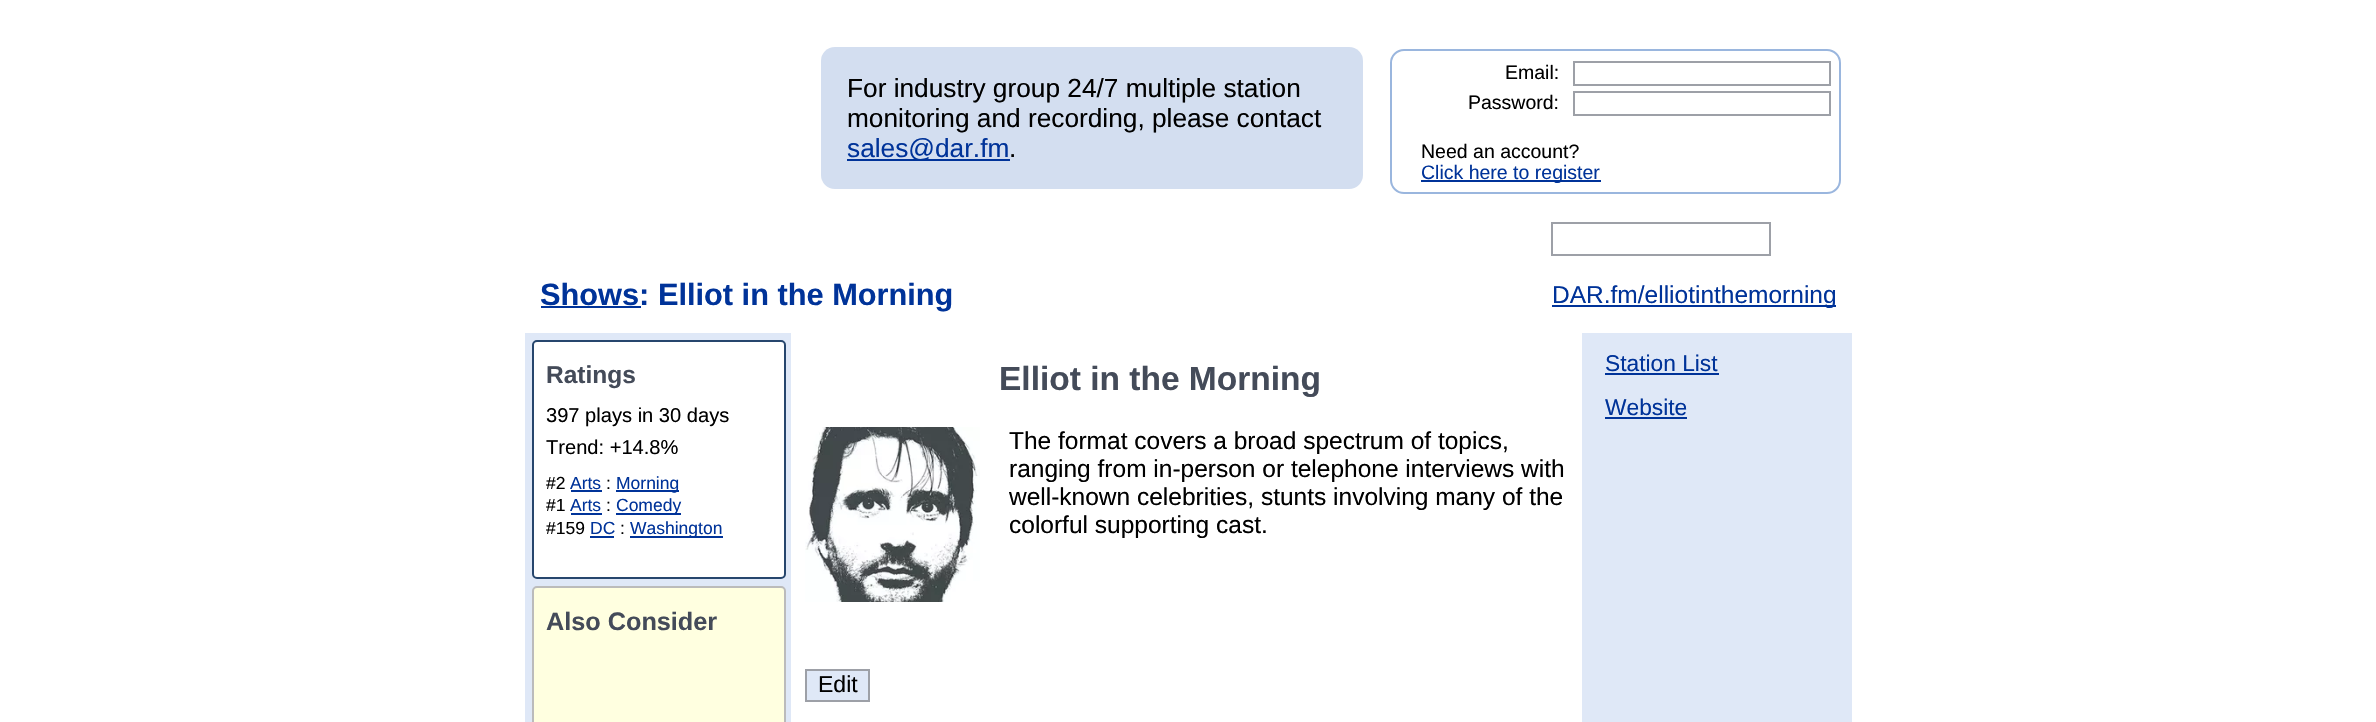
void draw(SkCanvas* canvas) {
    SkPaint paint;
    paint.setAntiAlias(true);
    canvas->clear(0xFFFFFFFF);
    paint.setColor(0xFFD3DEF0);
    canvas->drawRoundRect(SkRect::MakeXYWH(821, 47, 542, 142), 14, 14, paint);
    SkFont font1(fontMgr->matchFamilyStyle("Liberation Sans", SkFontStyle::Normal()), 26.25f);
    font1.setSubpixel(true);
    paint.setColor(0xFF000000);
    canvas->drawString("For industry group 24/7 multiple station", 847, 97, font1, paint);
    canvas->drawString("monitoring and recording, please contact", 847, 127, font1, paint);
    paint.setColor(0xFF003399);
    canvas->drawRect(SkRect::MakeXYWH(847, 159, 163, 2), paint);
    canvas->drawString("sales@dar.fm", 847, 157, font1, paint);
    paint.setColor(0xFF000000);
    canvas->drawString(".", 1009, 157, font1, paint);
    paint.setStyle(SkPaint::kStroke_Style);
    paint.setStrokeWidth(2);
    paint.setColor(0xFF9AB6DE);
    canvas->drawRoundRect(SkRect::MakeXYWH(1391, 50, 449, 143), 13, 13, paint);
    SkFont font2(fontMgr->matchFamilyStyle("Liberation Sans", SkFontStyle::Normal()), 19.5f);
    font2.setSubpixel(true);
    paint.setStyle(SkPaint::kFill_Style);
    paint.setColor(0xFF000000);
    canvas->drawString("Email:", 1505, 79, font2, paint);
    paint.setStyle(SkPaint::kStroke_Style);
    paint.setColor(0xFF9DA0A7);
    canvas->drawRect(SkRect::MakeXYWH(1574, 62, 256, 23), paint);
    paint.setStyle(SkPaint::kFill_Style);
    paint.setColor(0xFF000000);
    canvas->drawString("Password:", 1468, 109, font2, paint);
    paint.setStyle(SkPaint::kStroke_Style);
    paint.setColor(0xFF9DA0A7);
    canvas->drawRect(SkRect::MakeXYWH(1574, 92, 256, 23), paint);
    paint.setStyle(SkPaint::kFill_Style);
    paint.setColor(0xFF000000);
    canvas->drawString("Need an account?", 1421, 158, font2, paint);
    paint.setColor(0xFF003399);
    canvas->drawRect(SkRect::MakeXYWH(1421, 180, 180, 2), paint);
    canvas->drawString("Click here to register", 1421, 179, font2, paint);
    paint.setStyle(SkPaint::kStroke_Style);
    paint.setColor(0xFF9DA0A7);
    canvas->drawRect(SkRect::MakeXYWH(1552, 223, 218, 32), paint);
    paint.setStyle(SkPaint::kFill_Style);
    paint.setColor(0xFFDFE8F7);
    canvas->drawRect(SkRect::MakeXYWH(525, 333, 1327, 389), paint);
    paint.setColor(0xFF003399);
    canvas->drawRect(SkRect::MakeXYWH(541, 306, 100, 2), paint);
    SkFont font3(fontMgr->matchFamilyStyle("Liberation Sans", SkFontStyle::Bold()), 30.75f);
    font3.setSubpixel(true);
    canvas->drawString("Shows: Elliot in the Morning", 540, 305, font3, paint);
    canvas->drawRect(SkRect::MakeXYWH(1552, 305, 284, 2), paint);
    SkFont font4(fontMgr->matchFamilyStyle("Liberation Sans", SkFontStyle::Normal()), 24.5f);
    font4.setSubpixel(true);
    canvas->drawString("DAR.fm/elliotinthemorning", 1552, 303, font4, paint);
    paint.setColor(0xFFFFFFFF);
    canvas->drawRoundRect(SkRect::MakeXYWH(533, 341, 252, 237), 4, 4, paint);
    paint.setStyle(SkPaint::kStroke_Style);
    paint.setColor(0xFF26466D);
    canvas->drawRoundRect(SkRect::MakeXYWH(533, 341, 252, 237), 4, 4, paint);
    SkFont font5(fontMgr->matchFamilyStyle("Liberation Sans", SkFontStyle::Bold()), 24.5f);
    font5.setSubpixel(true);
    paint.setStyle(SkPaint::kFill_Style);
    paint.setColor(0xFF444B59);
    canvas->drawString("Ratings", 546, 383, font5, paint);
    SkFont font6(fontMgr->matchFamilyStyle("Liberation Sans", SkFontStyle::Normal()), 20.1f);
    font6.setSubpixel(true);
    paint.setColor(0xFF000000);
    canvas->drawString("397 plays in 30 days", 546, 422, font6, paint);
    canvas->drawString("Trend: +14.8%", 546, 454, font6, paint);
    SkFont font7(fontMgr->matchFamilyStyle("Liberation Sans", SkFontStyle::Normal()), 17.5f);
    font7.setSubpixel(true);
    canvas->drawString("#2", 546, 489, font7, paint);
    paint.setColor(0xFF003399);
    canvas->drawString("Arts", 570, 489, font7, paint);
    canvas->drawRect(SkRect::MakeXYWH(571, 490, 31, 2), paint);
    paint.setColor(0xFF000000);
    canvas->drawString(":", 606, 489, font7, paint);
    paint.setColor(0xFF003399);
    canvas->drawRect(SkRect::MakeXYWH(616, 490, 63, 2), paint);
    canvas->drawString("Morning", 616, 489, font7, paint);
    paint.setColor(0xFF000000);
    canvas->drawString("#1", 546, 511, font7, paint);
    paint.setColor(0xFF003399);
    canvas->drawString("Arts", 570, 511, font7, paint);
    canvas->drawRect(SkRect::MakeXYWH(571, 513, 31, 2), paint);
    paint.setColor(0xFF000000);
    canvas->drawString(":", 606, 511, font7, paint);
    paint.setColor(0xFF003399);
    canvas->drawRect(SkRect::MakeXYWH(616, 513, 65, 2), paint);
    canvas->drawString("Comedy", 616, 511, font7, paint);
    paint.setColor(0xFF000000);
    canvas->drawString("#159", 546, 534, font7, paint);
    paint.setColor(0xFF003399);
    canvas->drawString("DC", 590, 534, font7, paint);
    canvas->drawRect(SkRect::MakeXYWH(590, 536, 24, 2), paint);
    paint.setColor(0xFF000000);
    canvas->drawString(":", 620, 534, font7, paint);
    paint.setColor(0xFF003399);
    canvas->drawRect(SkRect::MakeXYWH(630, 536, 93, 2), paint);
    canvas->drawString("Washington", 630, 534, font7, paint);
    paint.setColor(0xFFFFFFE0);
    canvas->drawRoundRect(SkRect::MakeXYWH(533, 587, 252, 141), 4, 4, paint);
    paint.setStyle(SkPaint::kStroke_Style);
    paint.setColor(0xFFBBBBBB);
    canvas->drawRoundRect(SkRect::MakeXYWH(533, 587, 252, 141), 4, 4, paint);
    SkFont font8(fontMgr->matchFamilyStyle("Liberation Sans", SkFontStyle::Bold()), 25.25f);
    font8.setSubpixel(true);
    paint.setStyle(SkPaint::kFill_Style);
    paint.setColor(0xFF444B59);
    canvas->drawString("Also Consider", 546, 630, font8, paint);
    paint.setColor(0xFFFFFFFF);
    canvas->drawRect(SkRect::MakeXYWH(791, 333, 791, 389), paint);
    SkFont font9(fontMgr->matchFamilyStyle("Liberation Sans", SkFontStyle::Bold()), 33.5f);
    font9.setSubpixel(true);
    paint.setColor(0xFF444B59);
    canvas->drawString("Elliot in the Morning", 999, 390, font9, paint);
    canvas->drawImageRect(SkImages::DeferredFromEncodedData(SkData::MakeFromFileName("img1.png")), SkRect::MakeXYWH(805, 427, 175, 175), SkSamplingOptions());
    paint.setColor(0xFF000000);
    canvas->drawString("The format covers a broad spectrum of topics,", 1009, 449, font4, paint);
    canvas->drawString("ranging from in-person or telephone interviews with", 1009, 477, font4, paint);
    canvas->drawString("well-known celebrities, stunts involving many of the", 1009, 505, font4, paint);
    canvas->drawString("colorful supporting cast.", 1009, 533, font4, paint);
    paint.setColor(0xFFDFE8F7);
    canvas->drawRect(SkRect::MakeXYWH(806, 670, 63, 31), paint);
    paint.setStyle(SkPaint::kStroke_Style);
    paint.setColor(0xFF9DA0A7);
    canvas->drawRect(SkRect::MakeXYWH(806, 670, 63, 31), paint);
    SkFont font10(fontMgr->matchFamilyStyle("Liberation Sans", SkFontStyle::Normal()), 23);
    font10.setSubpixel(true);
    paint.setStyle(SkPaint::kFill_Style);
    paint.setColor(0xFF000000);
    canvas->drawString("Edit", 818, 692, font10, paint);
    SkFont font11(fontMgr->matchFamilyStyle("Liberation Sans", SkFontStyle::Normal()), 22.75f);
    font11.setSubpixel(true);
    paint.setColor(0xFF003399);
    canvas->drawString("Station List", 1605, 371, font11, paint);
    canvas->drawRect(SkRect::MakeXYWH(1605, 373, 114, 2), paint);
    canvas->drawString("Website", 1605, 415, font11, paint);
    canvas->drawRect(SkRect::MakeXYWH(1605, 417, 82, 2), paint);
}
